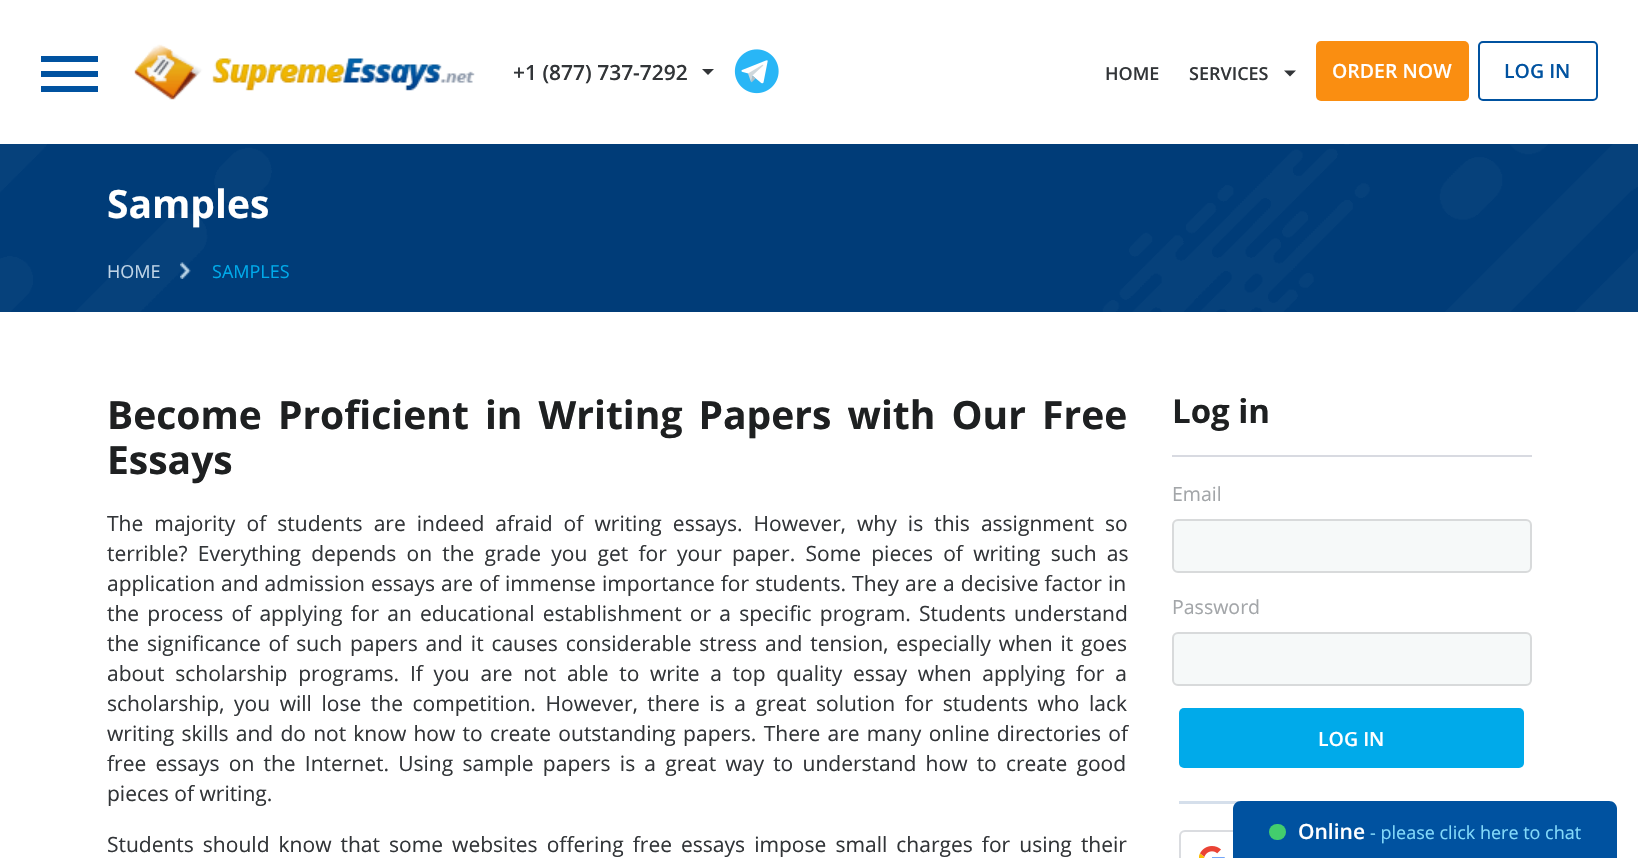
void draw(SkCanvas* canvas) {
    SkPaint paint;
    paint.setAntiAlias(true);
    auto spacedText = [&](const char* s, float x, float y, const SkFont& font, const SkPaint& ink, float letter, float word) {
        std::vector<SkGlyphID> glyphs(font.countText(s, strlen(s), SkTextEncoding::kUTF8));
        std::vector<float> xs(glyphs.size());
        font.textToGlyphs(s, strlen(s), SkTextEncoding::kUTF8, glyphs);
        font.getXPos(glyphs, xs, x);
        float extra = 0;
        for (size_t i = 0; i < glyphs.size(); i++) {
            xs[i] += extra;
            extra += letter + word * (glyphs[i] == font.unicharToGlyph(' '));
        }
        canvas->drawTextBlob(SkTextBlob::MakeFromPosHGlyphs(glyphs, xs, y, font), 0, 0, ink);
    };
    canvas->clear(0xFFFFFFFF);
    paint.setColor(0xFF0052A0);
    canvas->drawRect(SkRect::MakeXYWH(41, 56, 57, 6), paint);
    canvas->drawRect(SkRect::MakeXYWH(41, 71, 57, 6), paint);
    canvas->drawRect(SkRect::MakeXYWH(41, 86, 57, 6), paint);
    canvas->drawImageRect(SkImages::DeferredFromEncodedData(SkData::MakeFromFileName("img1.png")), SkRect::MakeXYWH(134, 44, 341, 56), SkSamplingOptions());
    SkFont font1(fontMgr->matchFamilyStyle("Open Sans", SkFontStyle(600, SkFontStyle::kNormal_Width, SkFontStyle::kUpright_Slant)), 21);
    font1.setSubpixel(true);
    paint.setColor(0xFF323538);
    canvas->drawString("+1 (877) 737-7292", 513, 80, font1, paint);
    canvas->drawPath(SkPathBuilder().moveTo(702, 69).lineTo(714, 69).lineTo(708, 75).close().detach(), paint);
    canvas->drawImageRect(SkImages::DeferredFromEncodedData(SkData::MakeFromFileName("img2.png")), SkRect::MakeXYWH(734, 49, 45, 45), SkSamplingOptions());
    SkFont font2(fontMgr->matchFamilyStyle("Open Sans", SkFontStyle(600, SkFontStyle::kNormal_Width, SkFontStyle::kUpright_Slant)), 18);
    font2.setSubpixel(true);
    canvas->drawString("HOME", 1105, 80, font2, paint);
    canvas->drawString("SERVICES", 1189, 80, font2, paint);
    canvas->drawPath(SkPathBuilder().moveTo(1284, 70.5f).lineTo(1296, 70.5f).lineTo(1290, 76.5f).close().detach(), paint);
    paint.setColor(0xFFFA8E11);
    canvas->drawRoundRect(SkRect::MakeXYWH(1316, 41, 153, 60), 5, 5, paint);
    SkFont font3(fontMgr->matchFamilyStyle("Open Sans", SkFontStyle(600, SkFontStyle::kNormal_Width, SkFontStyle::kUpright_Slant)), 19.5f);
    font3.setSubpixel(true);
    paint.setColor(0xFFFFFFFF);
    canvas->drawString("ORDER NOW", 1332, 78, font3, paint);
    paint.setStyle(SkPaint::kStroke_Style);
    paint.setStrokeWidth(2);
    paint.setColor(0xFF0052A0);
    canvas->drawRoundRect(SkRect::MakeXYWH(1479, 42, 118, 58), 4, 4, paint);
    paint.setStyle(SkPaint::kFill_Style);
    canvas->drawString("LOG IN", 1504, 78, font3, paint);
    paint.setColor(0xFF003C78);
    canvas->drawRect(SkRect::MakeXYWH(0, 144, 1638, 168), paint);
    canvas->drawImageRect(SkImages::DeferredFromEncodedData(SkData::MakeFromFileName("img3.png")), SkRect::MakeXYWH(0, 144, 1638, 168), SkSamplingOptions());
    SkFont font4(fontMgr->matchFamilyStyle("Open Sans", SkFontStyle::Bold()), 39);
    font4.setSubpixel(true);
    paint.setColor(0xFFFFFFFF);
    canvas->drawString("Samples", 107, 218, font4, paint);
    SkFont font5(fontMgr->matchFamilyStyle("Open Sans", SkFontStyle::Normal()), 18);
    font5.setSubpixel(true);
    paint.setColor(0xFFBFD4E7);
    canvas->drawString("HOME", 107, 278, font5, paint);
    canvas->drawImageRect(SkImages::DeferredFromEncodedData(SkData::MakeFromFileName("img4.png")), SkRect::MakeXYWH(180, 262, 11, 17), SkSamplingOptions());
    paint.setColor(0xFF00AAEA);
    canvas->drawString("SAMPLES", 212, 278, font5, paint);
    paint.setColor(0xFF1E2021);
    spacedText("Become Proficient in Writing Papers with Our Free", 107, 429, font4, paint, 0, 6);
    canvas->drawString("Essays", 107, 474, font4, paint);
    paint.setColor(0xFFD8DAE1);
    canvas->drawRect(SkRect::MakeXYWH(1172, 455, 360, 2), paint);
    SkFont font6(fontMgr->matchFamilyStyle("Open Sans", SkFontStyle::Bold()), 33);
    font6.setSubpixel(true);
    paint.setColor(0xFF1E2021);
    canvas->drawString("Log in", 1172, 423, font6, paint);
    SkFont font7(fontMgr->matchFamilyStyle("Open Sans", SkFontStyle::Normal()), 19.5f);
    font7.setSubpixel(true);
    paint.setColor(0xFFA3A6A9);
    canvas->drawString("Email", 1172, 501, font7, paint);
    paint.setColor(0xFFF6F9F9);
    canvas->drawRoundRect(SkRect::MakeXYWH(1173, 520, 358, 52), 5, 5, paint);
    paint.setStyle(SkPaint::kStroke_Style);
    paint.setColor(0xFFD8DADB);
    canvas->drawRoundRect(SkRect::MakeXYWH(1173, 520, 358, 52), 5, 5, paint);
    paint.setStyle(SkPaint::kFill_Style);
    paint.setColor(0xFFA3A6A9);
    canvas->drawString("Password", 1172, 614, font7, paint);
    paint.setColor(0xFFF6F9F9);
    canvas->drawRoundRect(SkRect::MakeXYWH(1173, 633, 358, 52), 5, 5, paint);
    paint.setStyle(SkPaint::kStroke_Style);
    paint.setColor(0xFFD8DADB);
    canvas->drawRoundRect(SkRect::MakeXYWH(1173, 633, 358, 52), 5, 5, paint);
    paint.setStyle(SkPaint::kFill_Style);
    paint.setColor(0xFF00AAEA);
    canvas->drawRoundRect(SkRect::MakeXYWH(1179, 708, 345, 60), 5, 5, paint);
    paint.setColor(0xFFFFFFFF);
    canvas->drawString("LOG IN", 1318, 746, font3, paint);
    paint.setColor(0xFFD5DFEB);
    canvas->drawRect(SkRect::MakeXYWH(1179, 801, 62, 3), paint);
    paint.setStyle(SkPaint::kStroke_Style);
    paint.setColor(0xFFDADCE0);
    canvas->drawRoundRect(SkRect::MakeXYWH(1180, 831, 343, 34), 5, 5, paint);
    canvas->drawImageRect(SkImages::DeferredFromEncodedData(SkData::MakeFromFileName("img5.png")), SkRect::MakeXYWH(1199, 846, 26, 12), SkSamplingOptions());
    SkFont font8(fontMgr->matchFamilyStyle("Open Sans", SkFontStyle::Normal()), 21);
    font8.setSubpixel(true);
    paint.setStyle(SkPaint::kFill_Style);
    paint.setColor(0xFF323538);
    spacedText("The majority of students are indeed afraid of writing essays. However, why is this assignment so", 107, 531, font8, paint, 0, 5.6f);
    spacedText("terrible? Everything depends on the grade you get for your paper. Some pieces of writing such as", 107, 561, font8, paint, 0, 4.75f);
    spacedText("application and admission essays are of immense importance for students. They are a decisive factor in", 107, 591, font8, paint, 0, 0.6f);
    spacedText("the process of applying for an educational establishment or a specific program. Students understand", 107, 621, font8, paint, 0, 2.75f);
    spacedText("the significance of such papers and it causes considerable stress and tension, especially when it goes", 107, 651, font8, paint, 0, 2.4f);
    spacedText("about scholarship programs. If you are not able to write a top quality essay when applying for a", 107, 681, font8, paint, 0, 5.25f);
    spacedText("scholarship, you will lose the competition. However, there is a great solution for students who lack", 107, 711, font8, paint, 0, 4.1f);
    spacedText("writing skills and do not know how to create outstanding papers. There are many online directories of", 107, 741, font8, paint, 0, 1.75f);
    spacedText("free essays on the Internet. Using sample papers is a great way to understand how to create good", 107, 771, font8, paint, 0, 3.75f);
    canvas->drawString("pieces of writing.", 107, 801, font8, paint);
    spacedText("Students should know that some websites offering free essays impose small charges for using their", 107, 852, font8, paint, 0, 3.6f);
    paint.setColor(0xFF0052A0);
    canvas->drawPath(SkPathBuilder().moveTo(1241, 801).lineTo(1609, 801).cubicTo(1613.5f, 801, 1617, 804.5f, 1617, 809).lineTo(1617, 858).lineTo(1233, 858).lineTo(1233, 809).cubicTo(1233, 804.5f, 1236.5f, 801, 1241, 801).close().detach(), paint);
    paint.setColor(0xFF43CD6D);
    canvas->drawRoundRect(SkRect::MakeXYWH(1269, 824, 17, 16), 8, 8, paint);
    paint.setColor(0xFFFFFFFF);
    canvas->drawString("Online", 1298, 839, font1, paint);
    paint.setColor(0xFF84DAFA);
    canvas->drawString("- please click here to chat", 1370, 839, font5, paint);
}
